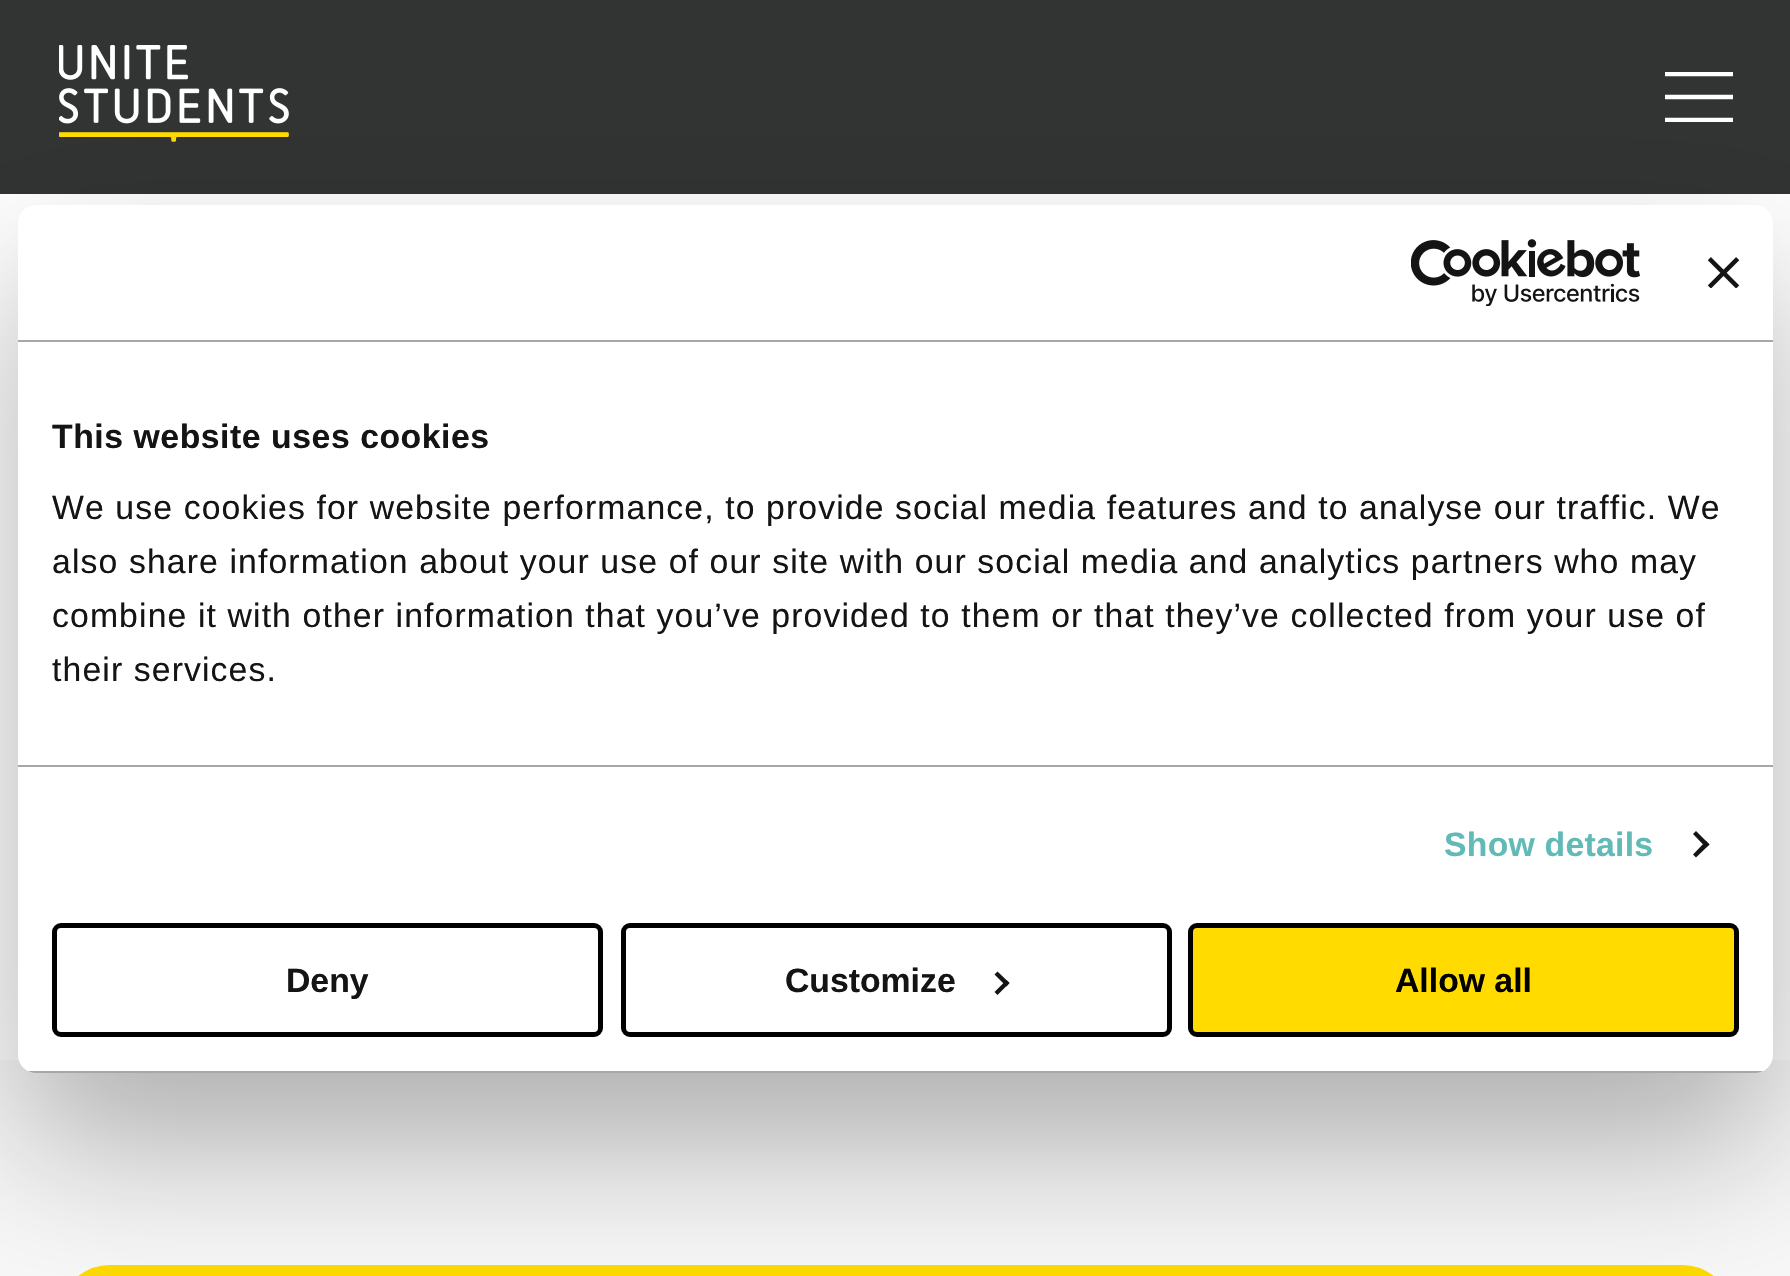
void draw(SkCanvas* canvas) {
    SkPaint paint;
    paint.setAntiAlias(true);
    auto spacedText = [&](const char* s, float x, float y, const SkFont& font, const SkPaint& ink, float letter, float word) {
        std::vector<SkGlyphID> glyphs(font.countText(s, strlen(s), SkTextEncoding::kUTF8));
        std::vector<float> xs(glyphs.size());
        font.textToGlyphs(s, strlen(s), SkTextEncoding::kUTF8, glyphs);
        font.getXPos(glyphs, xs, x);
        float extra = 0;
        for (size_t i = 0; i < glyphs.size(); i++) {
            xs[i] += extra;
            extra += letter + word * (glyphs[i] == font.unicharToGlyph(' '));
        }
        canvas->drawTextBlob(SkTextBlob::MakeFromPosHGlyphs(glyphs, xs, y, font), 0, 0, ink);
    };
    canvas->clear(0xFFFFFFFF);
    paint.setColor(0xFF323333);
    canvas->drawRect(SkRect::MakeXYWH(0, 0, 1790, 194), paint);
    canvas->drawImageRect(SkImages::DeferredFromEncodedData(SkData::MakeFromFileName("img1.png")), SkRect::MakeXYWH(59, 45, 230, 97), SkSamplingOptions());
    canvas->save();
    canvas->clipRect(SkRect::MakeXYWH(1665, 72, 68, 50));
    paint.setStyle(SkPaint::kStroke_Style);
    paint.setStrokeWidth(4.5f);
    paint.setColor(0xFFFFFFFF);
    canvas->drawPath(SkPathBuilder().moveTo(1665, 74).lineTo(1733.5f, 74).moveTo(1665, 97).lineTo(1733.5f, 97).moveTo(1665, 120).lineTo(1733.5f, 120).detach(), paint);
    canvas->restore();
    paint.setStyle(SkPaint::kFill_Style);
    paint.setColor(0xFFF8F8F9);
    canvas->drawRect(SkRect::MakeXYWH(0, 1060, 1790, 216), paint);
    paint.setStyle(SkPaint::kStroke_Style);
    paint.setStrokeWidth(23);
    paint.setColor(0xFFFFDB00);
    canvas->drawRoundRect(SkRect::MakeXYWH(70.5f, 1276.5f, 1651, 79), 56.5f, 56.5f, paint);
    paint.setStyle(SkPaint::kFill_Style);
    paint.setColor(0x4D000000);
    paint.setMaskFilter(SkMaskFilter::MakeBlur(kNormal_SkBlurStyle, 76.5f));
    canvas->drawRoundRect(SkRect::MakeXYWH(18, 277, 1755, 868), 18, 18, paint);
    paint.setMaskFilter(nullptr);
    paint.setColor(0xFFFFFFFF);
    canvas->drawRoundRect(SkRect::MakeXYWH(18, 205, 1755, 868), 18, 18, paint);
    paint.setColor(0xFFA7A7A7);
    canvas->drawRect(SkRect::MakeXYWH(18, 340, 1755, 2), paint);
    canvas->drawImageRect(SkImages::DeferredFromEncodedData(SkData::MakeFromFileName("img2.png")), SkRect::MakeXYWH(1411, 239, 229, 67), SkSamplingOptions());
    canvas->drawImageRect(SkImages::DeferredFromEncodedData(SkData::MakeFromFileName("img3.png")), SkRect::MakeXYWH(1708, 257, 31, 31), SkSamplingOptions());
    canvas->drawRect(SkRect::MakeXYWH(18, 765, 1755, 2), paint);
    SkFont font1(fontMgr->matchFamilyStyle("Liberation Sans", SkFontStyle::Bold()), 33.75f);
    font1.setSubpixel(true);
    paint.setColor(0xFF141414);
    spacedText("This website uses cookies", 52, 448, font1, paint, 0.55f, 0);
    SkFont font2(fontMgr->matchFamilyStyle("Liberation Sans", SkFontStyle::Normal()), 33.75f);
    font2.setSubpixel(true);
    spacedText("We use cookies for website performance, to provide social media features and to analyse our traffic. We", 52, 519, font2, paint, 1.12f, 0);
    spacedText("also share information about your use of our site with our social media and analytics partners who may", 52, 573, font2, paint, 1.12f, 0);
    spacedText("combine it with other information that you’ve provided to them or that they’ve collected from your use of", 52, 627, font2, paint, 1.12f, 0);
    spacedText("their services.", 52, 681, font2, paint, 1.12f, 0);
    paint.setColor(0xFF62BAB7);
    spacedText("Show details", 1444, 856, font1, paint, 0.25f, 0);
    paint.setColor(0xFF141414);
    canvas->drawPath(SkPathBuilder().moveTo(1696, 831).lineTo(1709.5f, 844.5f).lineTo(1706, 847.5f).lineTo(1693, 834).close().detach(), paint);
    canvas->drawPath(SkPathBuilder().moveTo(1706, 841).lineTo(1709.5f, 844.5f).lineTo(1696, 857.5f).lineTo(1693, 854.5f).close().detach(), paint);
    canvas->save();
    canvas->clipPath(SkPathBuilder().moveTo(36, 205).lineTo(1755, 205).cubicTo(1765, 205, 1773, 213, 1773, 223).lineTo(1773, 1055).cubicTo(1773, 1065, 1765, 1073, 1755, 1073).lineTo(36, 1073).cubicTo(26, 1073, 18, 1065, 18, 1055).lineTo(18, 223).cubicTo(18, 213, 26, 205, 36, 205).close().detach(), true);
    paint.setColor(0xFFA7A7A7);
    canvas->drawRect(SkRect::MakeXYWH(28, 1071, 1735, 2), paint);
    canvas->restore();
    paint.setStyle(SkPaint::kStroke_Style);
    paint.setStrokeWidth(5);
    paint.setColor(0xFF000000);
    canvas->drawRoundRect(SkRect::MakeXYWH(54.5f, 925.5f, 546, 109), 6.5f, 6.5f, paint);
    paint.setStyle(SkPaint::kFill_Style);
    paint.setColor(0xFF141414);
    canvas->drawString("Deny", 286, 992, font1, paint);
    paint.setStyle(SkPaint::kStroke_Style);
    paint.setColor(0xFF000000);
    canvas->drawRoundRect(SkRect::MakeXYWH(623.5f, 925.5f, 546, 109), 6.5f, 6.5f, paint);
    paint.setStyle(SkPaint::kFill_Style);
    paint.setColor(0xFF141414);
    canvas->drawString("Customize", 785, 992, font1, paint);
    canvas->drawPath(SkPathBuilder().moveTo(997.5f, 971.5f).lineTo(1009.5f, 983).lineTo(1006.5f, 986.5f).lineTo(994.5f, 974.5f).close().detach(), paint);
    canvas->drawPath(SkPathBuilder().moveTo(1006.5f, 980).lineTo(1009.5f, 983).lineTo(997.5f, 995).lineTo(994.5f, 992).close().detach(), paint);
    paint.setColor(0xFFFFDB00);
    canvas->drawRoundRect(SkRect::MakeXYWH(1190.5f, 925.5f, 546, 109), 6.5f, 6.5f, paint);
    paint.setStyle(SkPaint::kStroke_Style);
    paint.setColor(0xFF000000);
    canvas->drawRoundRect(SkRect::MakeXYWH(1190.5f, 925.5f, 546, 109), 6.5f, 6.5f, paint);
    paint.setStyle(SkPaint::kFill_Style);
    canvas->drawString("Allow all", 1395, 992, font1, paint);
}
